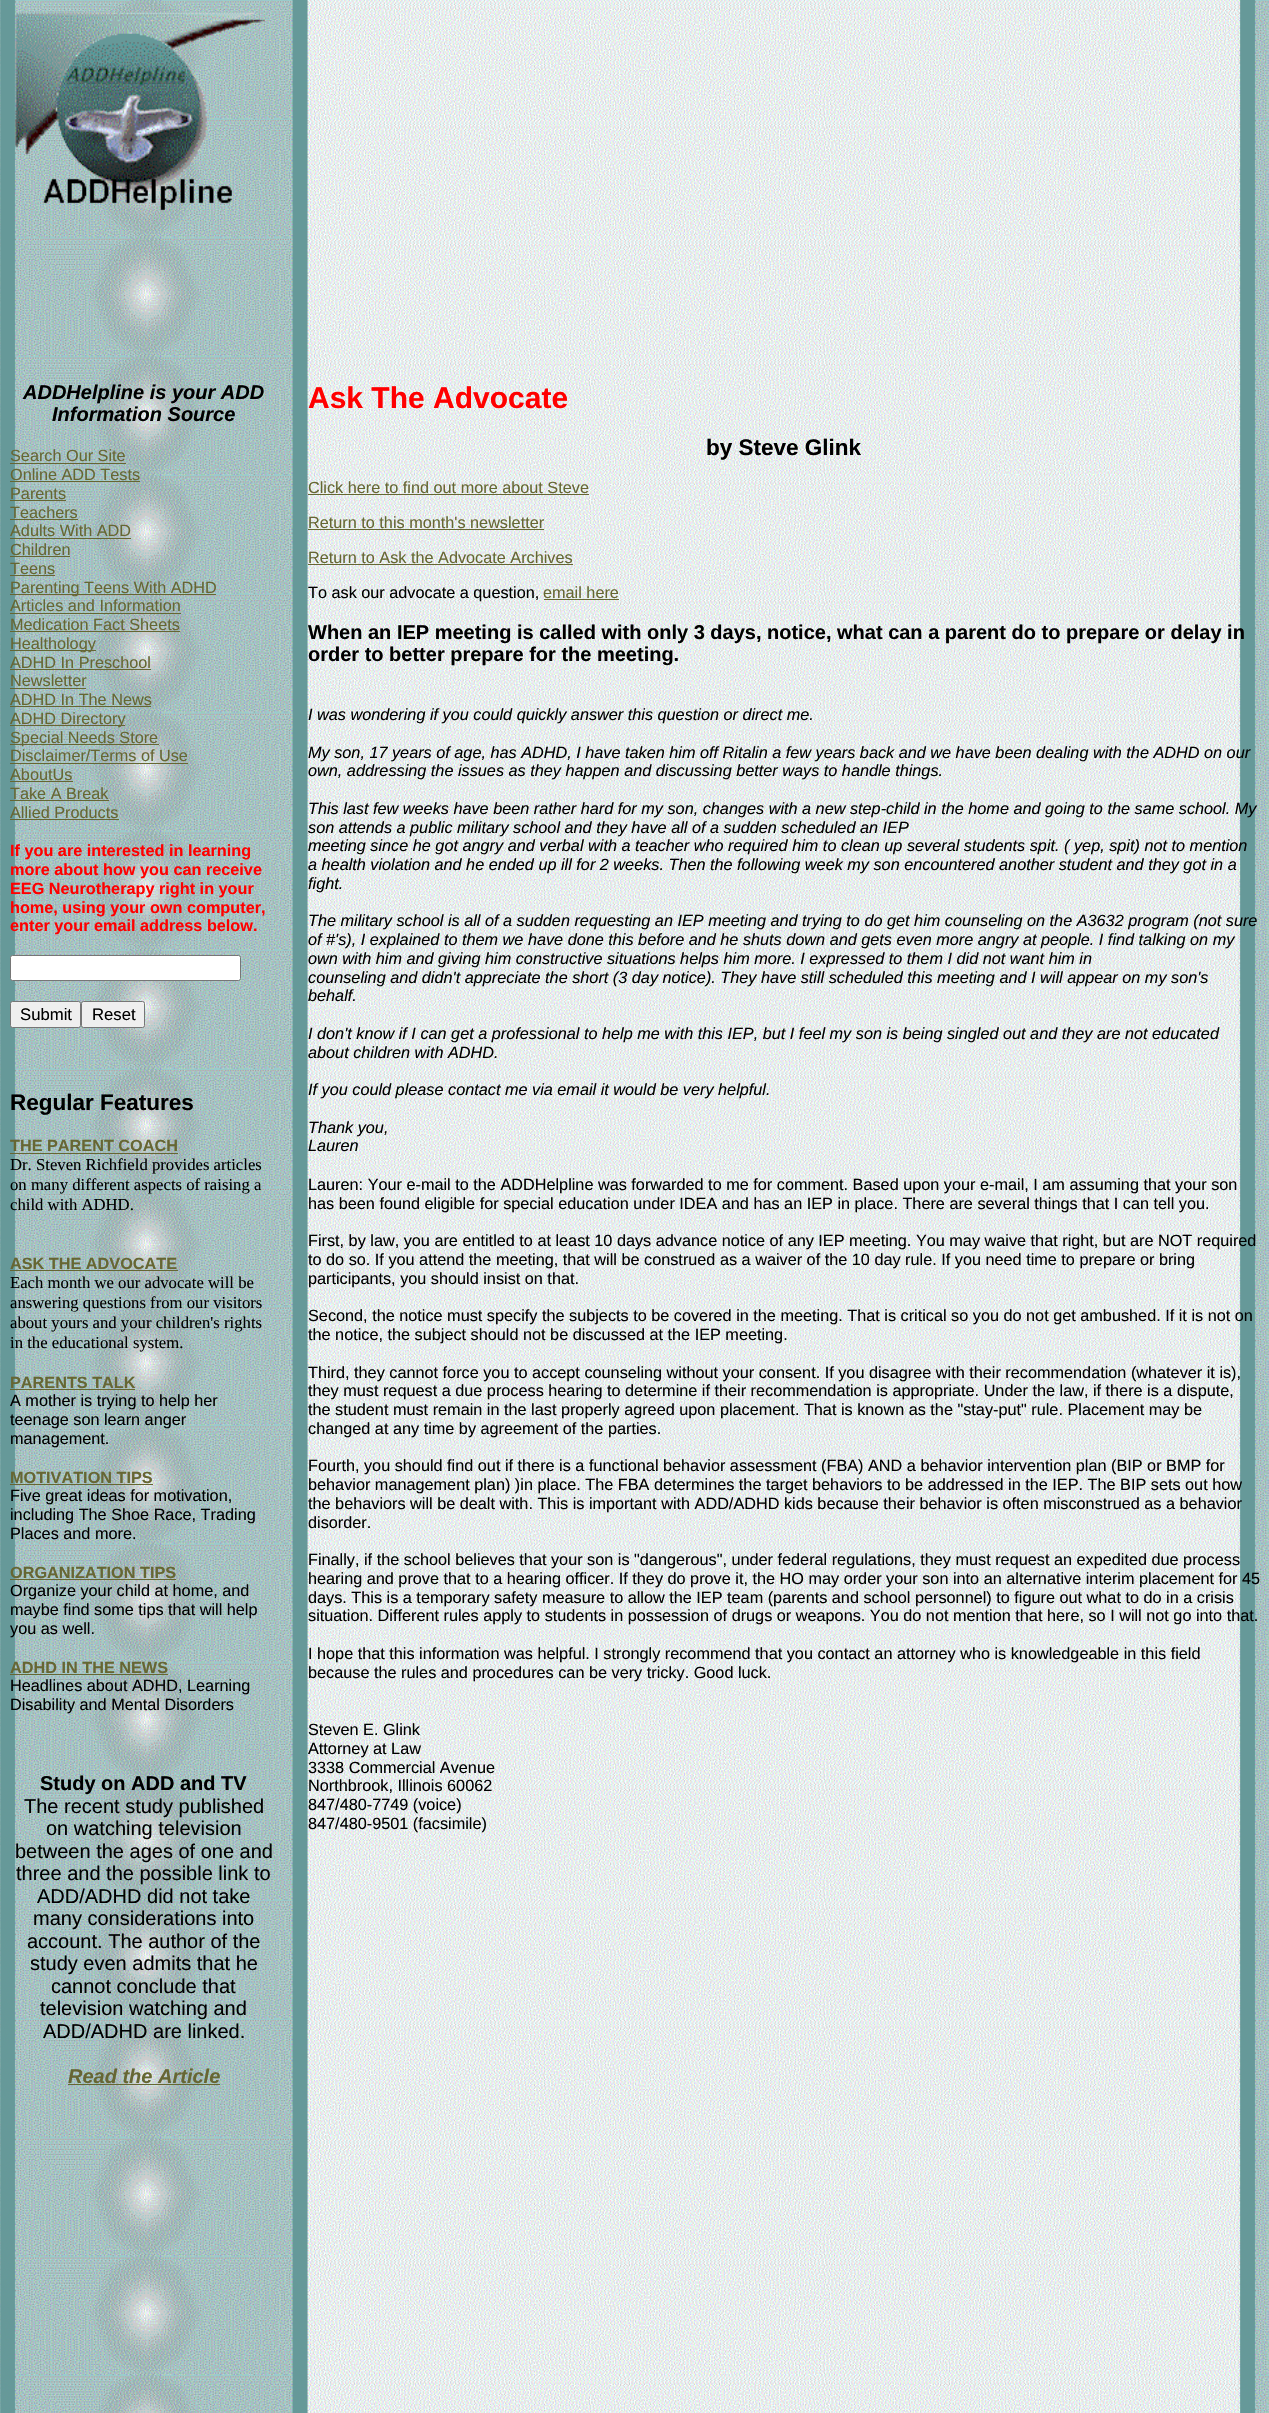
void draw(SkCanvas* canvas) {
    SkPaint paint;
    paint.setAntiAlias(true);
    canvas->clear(0xFFFFFFFF);
    canvas->drawImageRect(SkImages::DeferredFromEncodedData(SkData::MakeFromFileName("img1.png")), SkRect::MakeXYWH(0, 0, 1269, 2413), SkSamplingOptions());
    canvas->drawImageRect(SkImages::DeferredFromEncodedData(SkData::MakeFromFileName("img2.png")), SkRect::MakeXYWH(15, 12, 250, 199), SkSamplingOptions());
    SkFont font1(fontMgr->matchFamilyStyle("Liberation Sans", SkFontStyle::BoldItalic()), 20);
    font1.setSubpixel(true);
    paint.setColor(0xFF000000);
    canvas->drawString("ADDHelpline is your ADD", 23, 399, font1, paint);
    canvas->drawString("Information Source", 52, 421, font1, paint);
    SkFont font2(fontMgr->matchFamilyStyle("Liberation Sans", SkFontStyle::Normal()), 16.25f);
    font2.setSubpixel(true);
    paint.setColor(0xFF666633);
    canvas->drawString("Search Our Site", 10, 461, font2, paint);
    canvas->drawRect(SkRect::MakeXYWH(10, 463, 116, 1), paint);
    canvas->drawString("Online ADD Tests", 10, 480, font2, paint);
    canvas->drawRect(SkRect::MakeXYWH(10, 481, 130, 1), paint);
    canvas->drawString("Parents", 10, 499, font2, paint);
    canvas->drawRect(SkRect::MakeXYWH(10, 500, 56, 1), paint);
    canvas->drawString("Teachers", 10, 518, font2, paint);
    canvas->drawRect(SkRect::MakeXYWH(10, 519, 68, 1), paint);
    canvas->drawString("Adults With ADD", 10, 536, font2, paint);
    canvas->drawRect(SkRect::MakeXYWH(10, 538, 121, 1), paint);
    canvas->drawString("Children", 10, 555, font2, paint);
    canvas->drawRect(SkRect::MakeXYWH(10, 556, 60, 1), paint);
    canvas->drawString("Teens", 10, 574, font2, paint);
    canvas->drawRect(SkRect::MakeXYWH(10, 575, 45, 1), paint);
    canvas->drawRect(SkRect::MakeXYWH(10, 594, 206, 1), paint);
    canvas->drawString("Parenting Teens With ADHD", 10, 593, font2, paint);
    canvas->drawString("Articles and Information", 10, 611, font2, paint);
    canvas->drawRect(SkRect::MakeXYWH(10, 613, 171, 1), paint);
    canvas->drawString("Medication Fact Sheets", 10, 630, font2, paint);
    canvas->drawRect(SkRect::MakeXYWH(10, 631, 170, 1), paint);
    canvas->drawRect(SkRect::MakeXYWH(10, 650, 86, 1), paint);
    canvas->drawString("Healthology", 10, 649, font2, paint);
    canvas->drawString("ADHD In Preschool", 10, 668, font2, paint);
    canvas->drawRect(SkRect::MakeXYWH(10, 669, 141, 1), paint);
    canvas->drawString("Newsletter", 10, 686, font2, paint);
    canvas->drawRect(SkRect::MakeXYWH(10, 688, 76, 1), paint);
    canvas->drawString("ADHD In The News", 10, 705, font2, paint);
    canvas->drawRect(SkRect::MakeXYWH(10, 706, 141, 1), paint);
    canvas->drawRect(SkRect::MakeXYWH(10, 725, 115, 1), paint);
    canvas->drawString("ADHD Directory", 10, 724, font2, paint);
    canvas->drawRect(SkRect::MakeXYWH(10, 744, 149, 1), paint);
    canvas->drawString("Special Needs Store", 10, 743, font2, paint);
    canvas->drawString("Disclaimer/Terms of Use", 10, 761, font2, paint);
    canvas->drawRect(SkRect::MakeXYWH(10, 763, 178, 1), paint);
    canvas->drawString("AboutUs", 10, 780, font2, paint);
    canvas->drawRect(SkRect::MakeXYWH(10, 781, 63, 1), paint);
    canvas->drawString("Take A Break", 10, 799, font2, paint);
    canvas->drawRect(SkRect::MakeXYWH(10, 800, 99, 1), paint);
    canvas->drawString("Allied Products", 10, 818, font2, paint);
    canvas->drawRect(SkRect::MakeXYWH(10, 819, 109, 1), paint);
    SkFont font3(fontMgr->matchFamilyStyle("Liberation Sans", SkFontStyle::Bold()), 16.25f);
    font3.setSubpixel(true);
    paint.setColor(0xFFFF0000);
    canvas->drawString("If you are interested in learning", 10, 856, font3, paint);
    canvas->drawString("more about how you can receive", 10, 875, font3, paint);
    canvas->drawString("EEG Neurotherapy right in your", 10, 894, font3, paint);
    canvas->drawString("home, using your own computer,", 10, 913, font3, paint);
    canvas->drawString("enter your email address below.", 10, 931, font3, paint);
    paint.setColor(0xFFFFFFFF);
    canvas->drawRoundRect(SkRect::MakeXYWH(10.5f, 955.5f, 230, 25), 2, 2, paint);
    paint.setStyle(SkPaint::kStroke_Style);
    paint.setStrokeWidth(1);
    paint.setColor(0xFF767676);
    canvas->drawRoundRect(SkRect::MakeXYWH(10.5f, 955.5f, 230, 25), 2, 2, paint);
    paint.setStyle(SkPaint::kFill_Style);
    paint.setColor(0xFFEFEFEF);
    canvas->drawRoundRect(SkRect::MakeXYWH(10.5f, 1001.5f, 70, 26), 2, 2, paint);
    paint.setStyle(SkPaint::kStroke_Style);
    paint.setColor(0xFF767676);
    canvas->drawRoundRect(SkRect::MakeXYWH(10.5f, 1001.5f, 70, 26), 2, 2, paint);
    SkFont font4(fontMgr->matchFamilyStyle("Liberation Sans", SkFontStyle::Normal()), 16.7f);
    font4.setSubpixel(true);
    paint.setStyle(SkPaint::kFill_Style);
    paint.setColor(0xFF000000);
    canvas->drawString("Submit", 20, 1020, font4, paint);
    paint.setColor(0xFFEFEFEF);
    canvas->drawRoundRect(SkRect::MakeXYWH(81.5f, 1001.5f, 63, 26), 2, 2, paint);
    paint.setStyle(SkPaint::kStroke_Style);
    paint.setColor(0xFF767676);
    canvas->drawRoundRect(SkRect::MakeXYWH(81.5f, 1001.5f, 63, 26), 2, 2, paint);
    paint.setStyle(SkPaint::kFill_Style);
    paint.setColor(0xFF000000);
    canvas->drawString("Reset", 92, 1020, font4, paint);
    SkFont font5(fontMgr->matchFamilyStyle("Liberation Sans", SkFontStyle::Bold()), 22.5f);
    font5.setSubpixel(true);
    canvas->drawString("Regular Features", 10, 1110, font5, paint);
    paint.setColor(0xFF666633);
    canvas->drawString("THE PARENT COACH", 10, 1151, font3, paint);
    canvas->drawRect(SkRect::MakeXYWH(10, 1153, 168, 1), paint);
    SkFont font6(fontMgr->matchFamilyStyle("Liberation Serif", SkFontStyle::Normal()), 16.7f);
    font6.setSubpixel(true);
    paint.setColor(0xFF000000);
    canvas->drawString("Dr. Steven Richfield provides articles", 10, 1170, font6, paint);
    canvas->drawString("on many different aspects of raising a", 10, 1190, font6, paint);
    canvas->drawString("child with ADHD.", 10, 1210, font6, paint);
    paint.setColor(0xFF666633);
    canvas->drawString("ASK THE ADVOCATE", 10, 1269, font3, paint);
    canvas->drawRect(SkRect::MakeXYWH(10, 1270, 168, 1), paint);
    paint.setColor(0xFF000000);
    canvas->drawString("Each month we our advocate will be", 10, 1288, font6, paint);
    canvas->drawString("answering questions from our visitors", 10, 1308, font6, paint);
    canvas->drawString("about yours and your children's rights", 10, 1328, font6, paint);
    canvas->drawString("in the educational system.", 10, 1348, font6, paint);
    paint.setColor(0xFF666633);
    canvas->drawString("PARENTS TALK", 10, 1388, font3, paint);
    canvas->drawRect(SkRect::MakeXYWH(10, 1389, 125, 1), paint);
    paint.setColor(0xFF000000);
    canvas->drawString("A mother is trying to help her", 10, 1406, font2, paint);
    canvas->drawString("teenage son learn anger", 10, 1425, font2, paint);
    canvas->drawString("management.", 10, 1444, font2, paint);
    paint.setColor(0xFF666633);
    canvas->drawString("MOTIVATION TIPS", 10, 1483, font3, paint);
    canvas->drawRect(SkRect::MakeXYWH(10, 1484, 143, 1), paint);
    paint.setColor(0xFF000000);
    canvas->drawString("Five great ideas for motivation,", 10, 1501, font2, paint);
    canvas->drawString("including The Shoe Race, Trading", 10, 1520, font2, paint);
    canvas->drawString("Places and more.", 10, 1539, font2, paint);
    paint.setColor(0xFF666633);
    canvas->drawString("ORGANIZATION TIPS", 10, 1578, font3, paint);
    canvas->drawRect(SkRect::MakeXYWH(10, 1579, 166, 1), paint);
    paint.setColor(0xFF000000);
    canvas->drawString("Organize your child at home, and", 10, 1596, font2, paint);
    canvas->drawString("maybe find some tips that will help", 10, 1615, font2, paint);
    canvas->drawString("you as well.", 10, 1634, font2, paint);
    paint.setColor(0xFF666633);
    canvas->drawString("ADHD IN THE NEWS", 10, 1673, font3, paint);
    canvas->drawRect(SkRect::MakeXYWH(10, 1674, 158, 1), paint);
    paint.setColor(0xFF000000);
    canvas->drawString("Headlines about ADHD, Learning", 10, 1691, font2, paint);
    canvas->drawString("Disability and Mental Disorders", 10, 1710, font2, paint);
    SkFont font7(fontMgr->matchFamilyStyle("Liberation Sans", SkFontStyle::Bold()), 20);
    font7.setSubpixel(true);
    canvas->drawString("Study on ADD and TV", 40, 1790, font7, paint);
    SkFont font8(fontMgr->matchFamilyStyle("Liberation Sans", SkFontStyle::Normal()), 20);
    font8.setSubpixel(true);
    canvas->drawString("The recent study published", 24, 1813, font8, paint);
    canvas->drawString("on watching television", 46, 1835, font8, paint);
    canvas->drawString("between the ages of one and", 15, 1858, font8, paint);
    canvas->drawString("three and the possible link to", 16, 1880, font8, paint);
    canvas->drawString("ADD/ADHD did not take", 37, 1903, font8, paint);
    canvas->drawString("many considerations into", 33, 1925, font8, paint);
    canvas->drawString("account. The author of the", 27, 1948, font8, paint);
    canvas->drawString("study even admits that he", 30, 1970, font8, paint);
    canvas->drawString("cannot conclude that", 51, 1993, font8, paint);
    canvas->drawString("television watching and", 40, 2015, font8, paint);
    canvas->drawString("ADD/ADHD are linked.", 43, 2038, font8, paint);
    paint.setColor(0xFF666633);
    canvas->drawString("Read the Article", 68, 2083, font1, paint);
    canvas->drawRect(SkRect::MakeXYWH(68, 2084, 152, 1), paint);
    SkFont font9(fontMgr->matchFamilyStyle("Liberation Sans", SkFontStyle::Bold()), 30);
    font9.setSubpixel(true);
    paint.setColor(0xFFFF0000);
    canvas->drawString("Ask The Advocate", 308, 408, font9, paint);
    paint.setColor(0xFF000000);
    canvas->drawString("by Steve Glink", 706, 455, font5, paint);
    paint.setColor(0xFF666633);
    canvas->drawString("Click here to find out more about Steve", 308, 493, font2, paint);
    canvas->drawRect(SkRect::MakeXYWH(308, 494, 281, 1), paint);
    canvas->drawString("Return to this month's newsletter", 308, 528, font2, paint);
    canvas->drawRect(SkRect::MakeXYWH(308, 529, 236, 1), paint);
    canvas->drawString("Return to Ask the Advocate Archives", 308, 563, font2, paint);
    canvas->drawRect(SkRect::MakeXYWH(308, 564, 265, 1), paint);
    paint.setColor(0xFF000000);
    canvas->drawString("To ask our advocate a question,", 308, 598, font2, paint);
    paint.setColor(0xFF666633);
    canvas->drawString("email here", 543, 598, font2, paint);
    canvas->drawRect(SkRect::MakeXYWH(544, 599, 75, 1), paint);
    paint.setColor(0xFF000000);
    canvas->drawString("When an IEP meeting is called with only 3 days, notice, what can a parent do to prepare or delay in", 308, 639, font7, paint);
    canvas->drawString("order to better prepare for the meeting.", 308, 661, font7, paint);
    SkFont font10(fontMgr->matchFamilyStyle("Liberation Sans", SkFontStyle::Italic()), 16.25f);
    font10.setSubpixel(true);
    canvas->drawString("I was wondering if you could quickly answer this question or direct me.", 308, 720, font10, paint);
    canvas->drawString("My son, 17 years of age, has ADHD, I have taken him off Ritalin a few years back and we have been dealing with the ADHD on our", 308, 758, font10, paint);
    canvas->drawString("own, addressing the issues as they happen and discussing better ways to handle things.", 308, 776, font10, paint);
    canvas->drawString("This last few weeks have been rather hard for my son, changes with a new step-child in the home and going to the same school. My", 308, 814, font10, paint);
    canvas->drawString("son attends a public military school and they have all of a sudden scheduled an IEP", 308, 833, font10, paint);
    canvas->drawString("meeting since he got angry and verbal with a teacher who required him to clean up several students spit. ( yep, spit) not to mention", 308, 851, font10, paint);
    canvas->drawString("a health violation and he ended up ill for 2 weeks. Then the following week my son encountered another student and they got in a", 308, 870, font10, paint);
    canvas->drawString("fight.", 308, 889, font10, paint);
    canvas->drawString("The military school is all of a sudden requesting an IEP meeting and trying to do get him counseling on the A3632 program (not sure", 308, 926, font10, paint);
    canvas->drawString("of #'s), I explained to them we have done this before and he shuts down and gets even more angry at people. I find talking on my", 308, 945, font10, paint);
    canvas->drawString("own with him and giving him constructive situations helps him more. I expressed to them I did not want him in", 308, 964, font10, paint);
    canvas->drawString("counseling and didn't appreciate the short (3 day notice). They have still scheduled this meeting and I will appear on my son's", 308, 983, font10, paint);
    canvas->drawString("behalf.", 308, 1001, font10, paint);
    canvas->drawString("I don't know if I can get a professional to help me with this IEP, but I feel my son is being singled out and they are not educated", 308, 1039, font10, paint);
    canvas->drawString("about children with ADHD.", 308, 1058, font10, paint);
    canvas->drawString("If you could please contact me via email it would be very helpful.", 308, 1095, font10, paint);
    canvas->drawString("Thank you,", 308, 1133, font10, paint);
    canvas->drawString("Lauren", 308, 1151, font10, paint);
    canvas->drawString("Lauren: Your e-mail to the ADDHelpline was forwarded to me for comment. Based upon your e-mail, I am assuming that your son", 308, 1190, font2, paint);
    canvas->drawString("has been found eligible for special education under IDEA and has an IEP in place. There are several things that I can tell you.", 308, 1209, font2, paint);
    canvas->drawString("First, by law, you are entitled to at least 10 days advance notice of any IEP meeting. You may waive that right, but are NOT required", 308, 1246, font2, paint);
    canvas->drawString("to do so. If you attend the meeting, that will be construed as a waiver of the 10 day rule. If you need time to prepare or bring", 308, 1265, font2, paint);
    canvas->drawString("participants, you should insist on that.", 308, 1284, font2, paint);
    canvas->drawString("Second, the notice must specify the subjects to be covered in the meeting. That is critical so you do not get ambushed. If it is not on", 308, 1321, font2, paint);
    canvas->drawString("the notice, the subject should not be discussed at the IEP meeting.", 308, 1340, font2, paint);
    canvas->drawString("Third, they cannot force you to accept counseling without your consent. If you disagree with their recommendation (whatever it is),", 308, 1378, font2, paint);
    canvas->drawString("they must request a due process hearing to determine if their recommendation is appropriate. Under the law, if there is a dispute,", 308, 1396, font2, paint);
    canvas->drawString("the student must remain in the last properly agreed upon placement. That is known as the \"stay-put\" rule. Placement may be", 308, 1415, font2, paint);
    canvas->drawString("changed at any time by agreement of the parties.", 308, 1434, font2, paint);
    canvas->drawString("Fourth, you should find out if there is a functional behavior assessment (FBA) AND a behavior intervention plan (BIP or BMP for", 308, 1471, font2, paint);
    canvas->drawString("behavior management plan) )in place. The FBA determines the target behaviors to be addressed in the IEP. The BIP sets out how", 308, 1490, font2, paint);
    canvas->drawString("the behaviors will be dealt with. This is important with ADD/ADHD kids because their behavior is often misconstrued as a behavior", 308, 1509, font2, paint);
    canvas->drawString("disorder.", 308, 1528, font2, paint);
    canvas->drawString("Finally, if the school believes that your son is \"dangerous\", under federal regulations, they must request an expedited due process", 308, 1565, font2, paint);
    canvas->drawString("hearing and prove that to a hearing officer. If they do prove it, the HO may order your son into an alternative interim placement for 45", 308, 1584, font2, paint);
    canvas->drawString("days. This is a temporary safety measure to allow the IEP team (parents and school personnel) to figure out what to do in a crisis", 308, 1603, font2, paint);
    canvas->drawString("situation. Different rules apply to students in possession of drugs or weapons. You do not mention that here, so I will not go into that.", 308, 1621, font2, paint);
    canvas->drawString("I hope that this information was helpful. I strongly recommend that you contact an attorney who is knowledgeable in this field", 308, 1659, font2, paint);
    canvas->drawString("because the rules and procedures can be very tricky. Good luck.", 308, 1678, font2, paint);
    canvas->drawString("Steven E. Glink", 308, 1735, font2, paint);
    canvas->drawString("Attorney at Law", 308, 1754, font2, paint);
    canvas->drawString("3338 Commercial Avenue", 308, 1773, font2, paint);
    canvas->drawString("Northbrook, Illinois 60062", 308, 1791, font2, paint);
    canvas->drawString("847/480-7749 (voice)", 308, 1810, font2, paint);
    canvas->drawString("847/480-9501 (facsimile)", 308, 1829, font2, paint);
}
